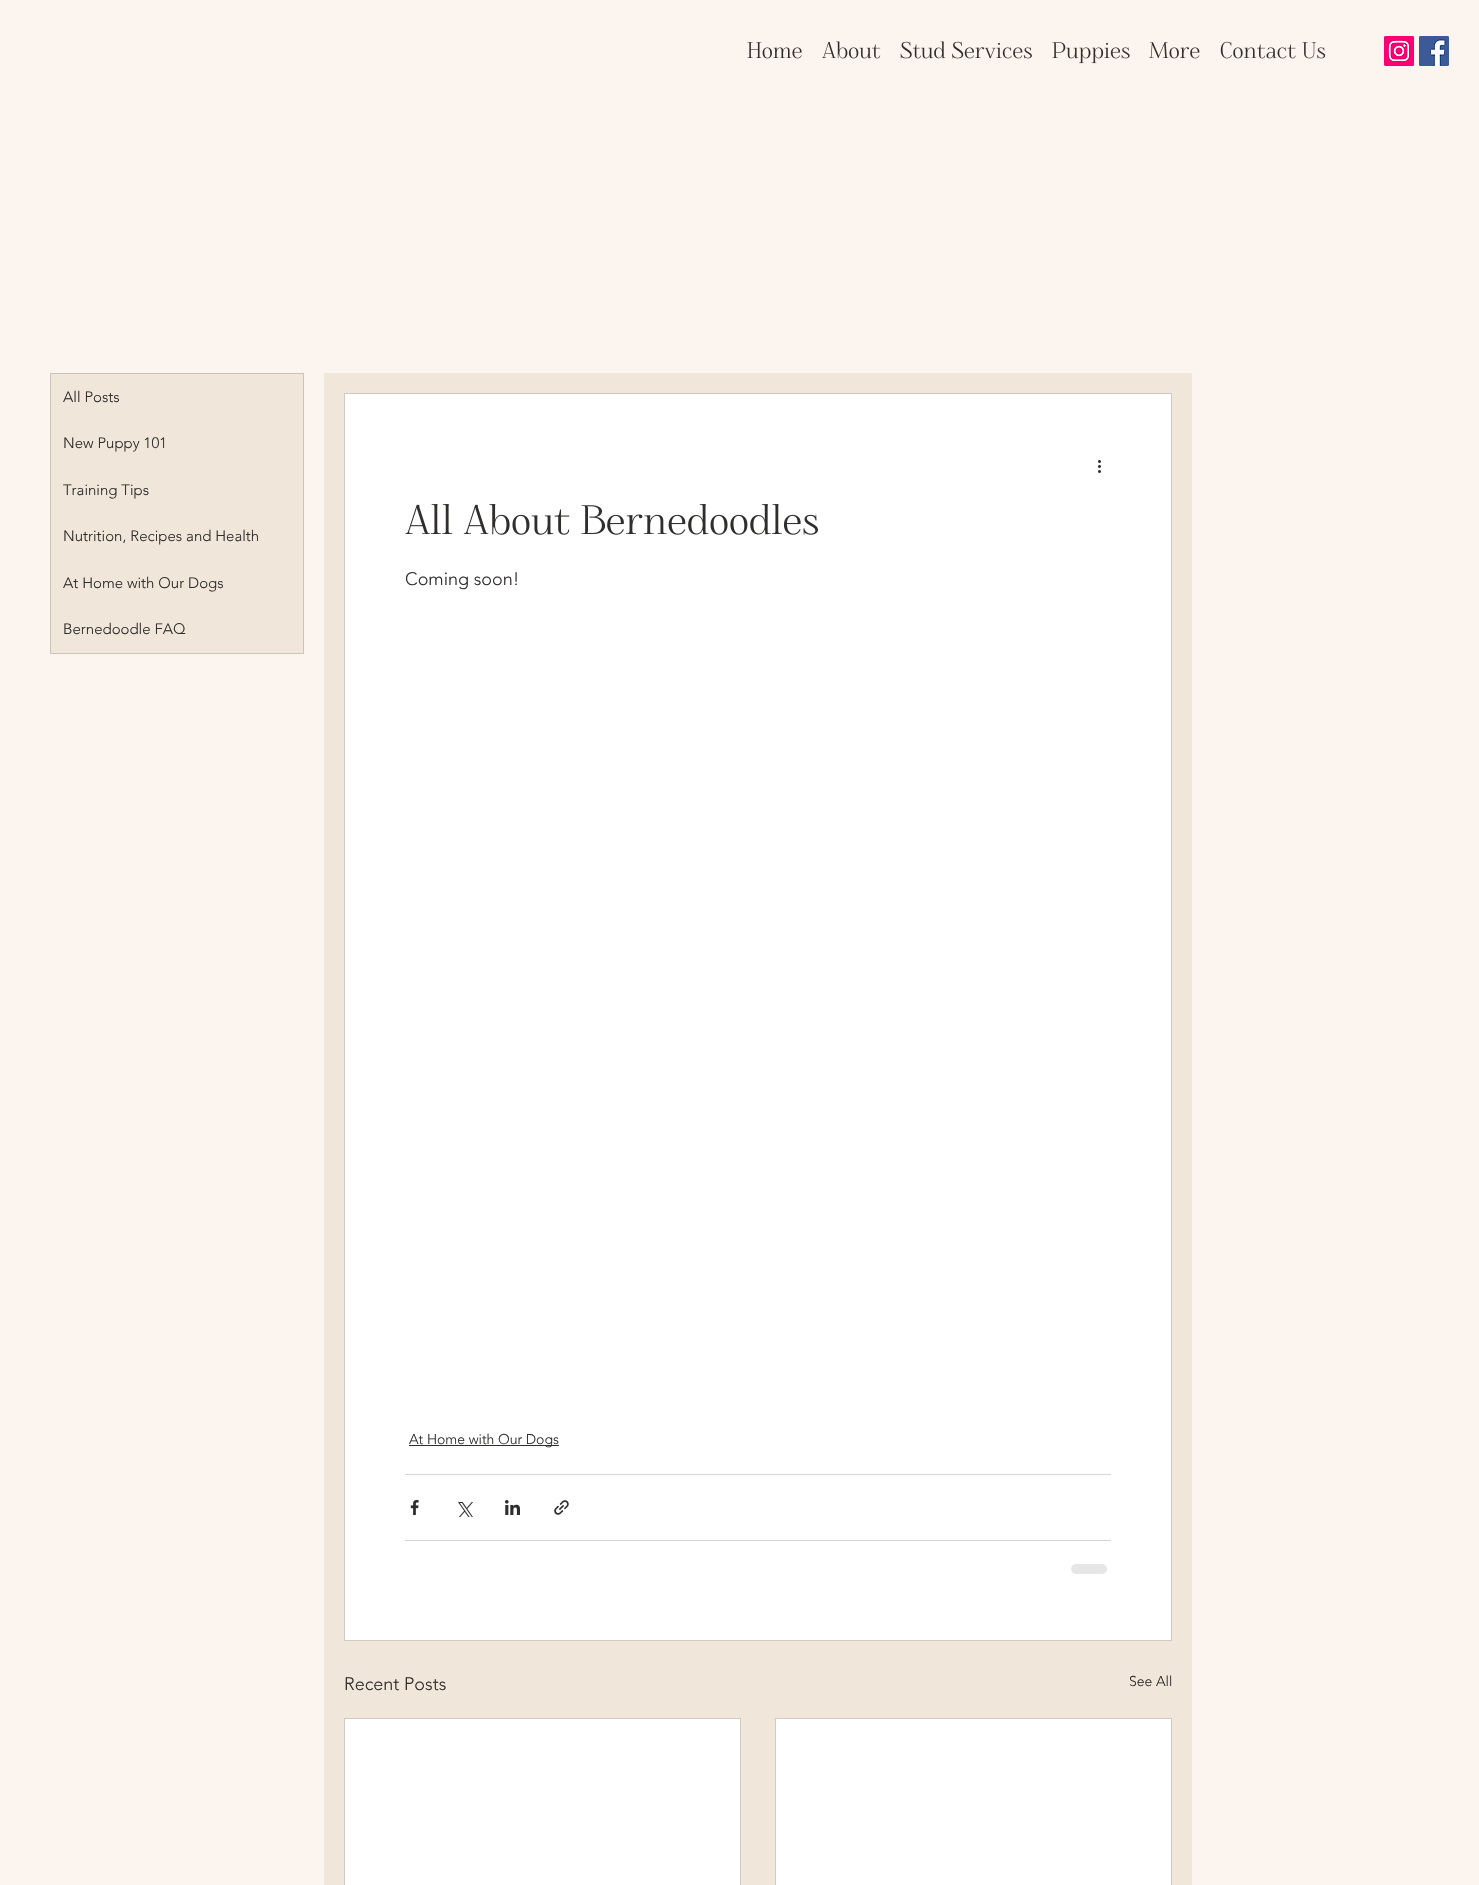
void draw(SkCanvas* canvas) {
    SkPaint paint;
    paint.setAntiAlias(true);
    canvas->clear(0xFFFCF4EE);
    canvas->drawImageRect(SkImages::DeferredFromEncodedData(SkData::MakeFromFileName("img1.png")), SkRect::MakeXYWH(747, 42, 55, 17), SkSamplingOptions());
    canvas->drawImageRect(SkImages::DeferredFromEncodedData(SkData::MakeFromFileName("img2.png")), SkRect::MakeXYWH(822, 41, 59, 18), SkSamplingOptions());
    canvas->drawImageRect(SkImages::DeferredFromEncodedData(SkData::MakeFromFileName("img3.png")), SkRect::MakeXYWH(900, 41, 132, 18), SkSamplingOptions());
    canvas->drawImageRect(SkImages::DeferredFromEncodedData(SkData::MakeFromFileName("img4.png")), SkRect::MakeXYWH(1052, 42, 78, 22), SkSamplingOptions());
    canvas->drawImageRect(SkImages::DeferredFromEncodedData(SkData::MakeFromFileName("img5.png")), SkRect::MakeXYWH(1149, 42, 51, 17), SkSamplingOptions());
    canvas->drawImageRect(SkImages::DeferredFromEncodedData(SkData::MakeFromFileName("img6.png")), SkRect::MakeXYWH(1220, 41, 106, 18), SkSamplingOptions());
    canvas->drawImageRect(SkImages::DeferredFromEncodedData(SkData::MakeFromFileName("img7.png")), SkRect::MakeXYWH(1384, 36, 30, 30), SkSamplingOptions());
    canvas->drawImageRect(SkImages::DeferredFromEncodedData(SkData::MakeFromFileName("img8.png")), SkRect::MakeXYWH(1419, 36, 30, 30), SkSamplingOptions());
    paint.setColor(0xFFF0E6DA);
    canvas->drawRect(SkRect::MakeXYWH(50.5f, 373.5f, 253, 280), paint);
    paint.setStyle(SkPaint::kStroke_Style);
    paint.setStrokeWidth(1);
    paint.setColor(0xFFCCC4B9);
    canvas->drawRect(SkRect::MakeXYWH(50.5f, 373.5f, 253, 280), paint);
    SkFont font1(fontMgr->matchFamilyStyle("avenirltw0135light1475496", SkFontStyle(300, SkFontStyle::kNormal_Width, SkFontStyle::kUpright_Slant)), 15);
    font1.setSubpixel(true);
    paint.setStyle(SkPaint::kFill_Style);
    paint.setColor(0xFF302E2C);
    canvas->drawString("All Posts", 63, 402, font1, paint);
    canvas->drawString("New Puppy 101", 63, 448, font1, paint);
    canvas->drawString("Training Tips", 63, 495, font1, paint);
    canvas->drawString("Nutrition, Recipes and Health", 63, 541, font1, paint);
    canvas->drawString("At Home with Our Dogs", 63, 588, font1, paint);
    canvas->drawString("Bernedoodle FAQ", 63, 634, font1, paint);
    paint.setColor(0xFFF0E6DA);
    canvas->drawRect(SkRect::MakeXYWH(324, 373, 868, 1512), paint);
    paint.setColor(0xFFFFFFFF);
    canvas->drawRect(SkRect::MakeXYWH(344.5f, 393.5f, 827, 1247), paint);
    paint.setStyle(SkPaint::kStroke_Style);
    paint.setColor(0xFFD0CAC2);
    canvas->drawRect(SkRect::MakeXYWH(344.5f, 393.5f, 827, 1247), paint);
    canvas->drawImageRect(SkImages::DeferredFromEncodedData(SkData::MakeFromFileName("img9.png")), SkRect::MakeXYWH(1098, 460, 3, 13), SkSamplingOptions());
    canvas->drawImageRect(SkImages::DeferredFromEncodedData(SkData::MakeFromFileName("img10.png")), SkRect::MakeXYWH(405, 504, 413, 31), SkSamplingOptions());
    SkFont font2(fontMgr->matchFamilyStyle("avenirltw0135light1475496", SkFontStyle(300, SkFontStyle::kNormal_Width, SkFontStyle::kUpright_Slant)), 18);
    font2.setSubpixel(true);
    paint.setStyle(SkPaint::kFill_Style);
    paint.setColor(0xFF302E2C);
    canvas->drawString("Coming soon!", 405, 585, font2, paint);
    canvas->drawRect(SkRect::MakeXYWH(409, 1445, 150, 1), paint);
    SkFont font3(fontMgr->matchFamilyStyle("avenirltw0135light1475496", SkFontStyle(300, SkFontStyle::kNormal_Width, SkFontStyle::kUpright_Slant)), 14);
    font3.setSubpixel(true);
    canvas->drawString("At Home with Our Dogs", 409, 1444, font3, paint);
    paint.setColor(0xFFD6D5D5);
    canvas->drawRect(SkRect::MakeXYWH(405, 1474, 706, 1), paint);
    canvas->drawImageRect(SkImages::DeferredFromEncodedData(SkData::MakeFromFileName("img11.png")), SkRect::MakeXYWH(410, 1500, 9, 15), SkSamplingOptions());
    canvas->drawImageRect(SkImages::DeferredFromEncodedData(SkData::MakeFromFileName("img12.png")), SkRect::MakeXYWH(458, 1502, 15, 15), SkSamplingOptions());
    canvas->drawImageRect(SkImages::DeferredFromEncodedData(SkData::MakeFromFileName("img13.png")), SkRect::MakeXYWH(505, 1500, 15, 15), SkSamplingOptions());
    canvas->drawImageRect(SkImages::DeferredFromEncodedData(SkData::MakeFromFileName("img14.png")), SkRect::MakeXYWH(554, 1500, 15, 15), SkSamplingOptions());
    canvas->drawRect(SkRect::MakeXYWH(405, 1540, 706, 1), paint);
    paint.setColor(0xFFE6E6E6);
    canvas->drawRoundRect(SkRect::MakeXYWH(1071, 1564, 36, 10), 5, 5, paint);
    paint.setColor(0xFF302E2C);
    canvas->drawString("Recent Posts", 344, 1690, font2, paint);
    canvas->drawString("See All", 1129, 1686, font3, paint);
    paint.setColor(0xFFFFFFFF);
    canvas->drawRect(SkRect::MakeXYWH(344.5f, 1718.5f, 396, 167), paint);
    paint.setStyle(SkPaint::kStroke_Style);
    paint.setColor(0xFFD0CAC2);
    canvas->drawRect(SkRect::MakeXYWH(344.5f, 1718.5f, 396, 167), paint);
    paint.setStyle(SkPaint::kFill_Style);
    paint.setColor(0xFFFFFFFF);
    canvas->drawRect(SkRect::MakeXYWH(775.5f, 1718.5f, 396, 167), paint);
    paint.setStyle(SkPaint::kStroke_Style);
    paint.setColor(0xFFD0CAC2);
    canvas->drawRect(SkRect::MakeXYWH(775.5f, 1718.5f, 396, 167), paint);
}
